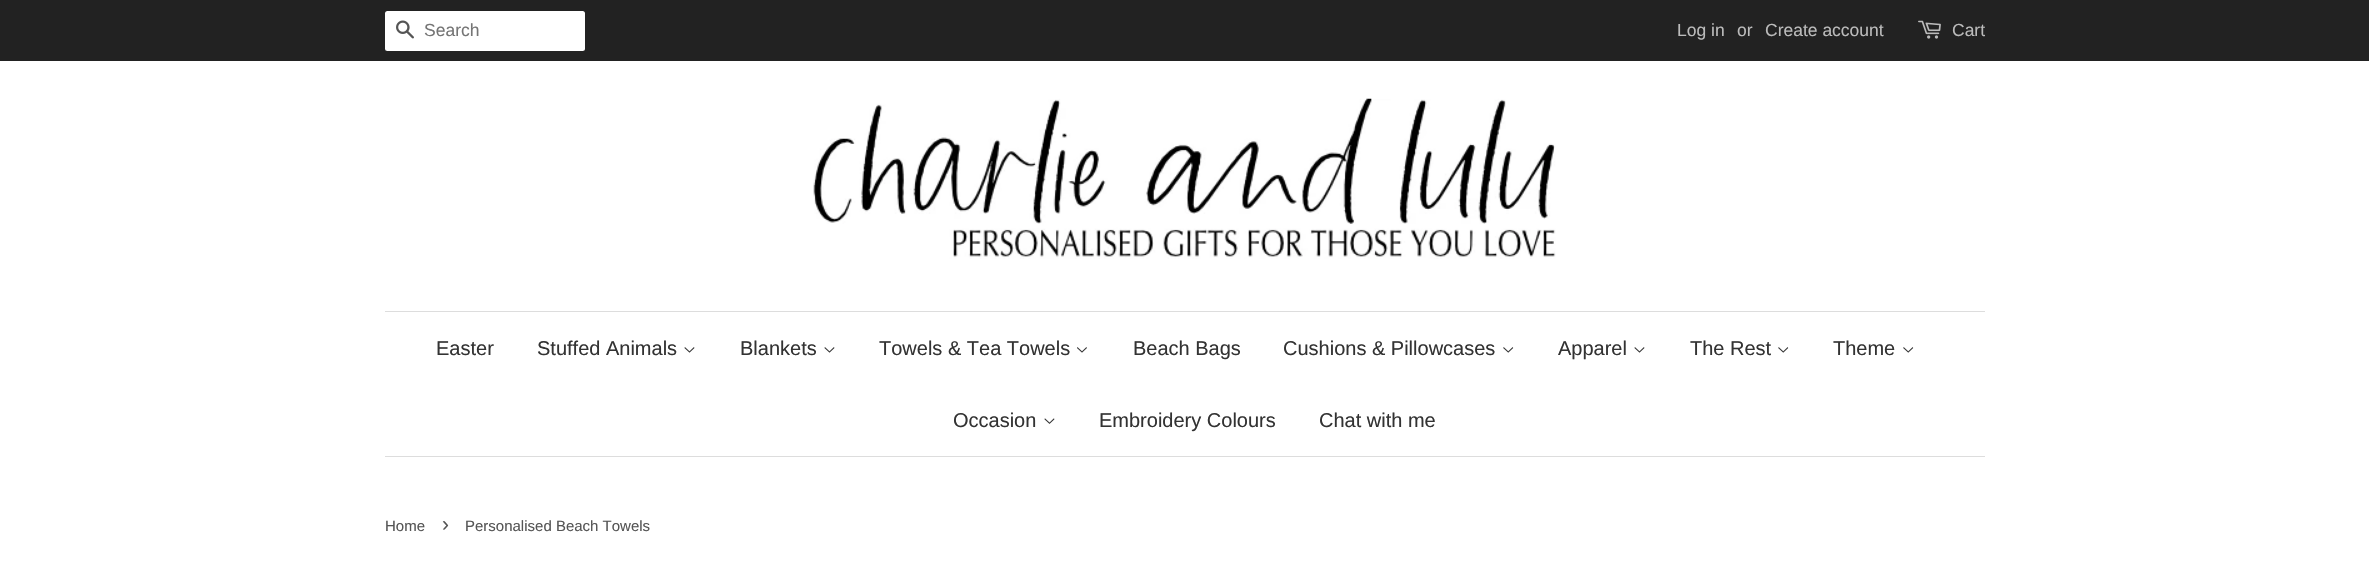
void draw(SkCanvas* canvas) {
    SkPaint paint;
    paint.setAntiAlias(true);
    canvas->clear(0xFFFFFFFF);
    paint.setColor(0xFF222222);
    canvas->drawRect(SkRect::MakeXYWH(0, 0, 2369, 61), paint);
    paint.setColor(0xFFFFFFFF);
    canvas->drawRoundRect(SkRect::MakeXYWH(385, 11, 200, 40), 2.5f, 2.5f, paint);
    canvas->drawImageRect(SkImages::DeferredFromEncodedData(SkData::MakeFromFileName("img1.png")), SkRect::MakeXYWH(396, 20, 18, 19), SkSamplingOptions());
    SkFont font1(fontMgr->matchFamilyStyle("Liberation Sans", SkFontStyle::Normal()), 17.5f);
    font1.setSubpixel(true);
    paint.setColor(0xFF757575);
    canvas->drawString("Search", 424, 36, font1, paint);
    paint.setColor(0xFFBBBBBB);
    canvas->drawString("Log in", 1677, 36, font1, paint);
    canvas->drawString("or", 1737, 36, font1, paint);
    canvas->drawString("Create account", 1765, 36, font1, paint);
    canvas->drawImageRect(SkImages::DeferredFromEncodedData(SkData::MakeFromFileName("img2.png")), SkRect::MakeXYWH(1918, 20, 23, 19), SkSamplingOptions());
    canvas->drawString("Cart", 1952, 36, font1, paint);
    canvas->drawImageRect(SkImages::DeferredFromEncodedData(SkData::MakeFromFileName("img3.png")), SkRect::MakeXYWH(813, 98, 743, 161), SkSamplingOptions());
    paint.setColor(0xFFDDDDDD);
    canvas->drawRect(SkRect::MakeXYWH(385, 311, 1600, 1), paint);
    canvas->drawRect(SkRect::MakeXYWH(385, 456, 1600, 1), paint);
    SkFont font2(fontMgr->matchFamilyStyle("Liberation Sans", SkFontStyle::Normal()), 20);
    font2.setSubpixel(true);
    paint.setColor(0xFF333333);
    canvas->drawString("Easter", 436, 355, font2, paint);
    canvas->drawString("Stuffed Animals", 537, 355, font2, paint);
    canvas->drawImageRect(SkImages::DeferredFromEncodedData(SkData::MakeFromFileName("img4.png")), SkRect::MakeXYWH(684, 347, 11, 6), SkSamplingOptions());
    canvas->drawString("Blankets", 740, 355, font2, paint);
    canvas->drawImageRect(SkImages::DeferredFromEncodedData(SkData::MakeFromFileName("img4.png")), SkRect::MakeXYWH(824, 347, 11, 6), SkSamplingOptions());
    canvas->drawString("Towels & Tea Towels", 879, 355, font2, paint);
    canvas->drawImageRect(SkImages::DeferredFromEncodedData(SkData::MakeFromFileName("img5.png")), SkRect::MakeXYWH(1077, 347, 10, 6), SkSamplingOptions());
    canvas->drawString("Beach Bags", 1133, 355, font2, paint);
    canvas->drawString("Cushions & Pillowcases", 1283, 355, font2, paint);
    canvas->drawImageRect(SkImages::DeferredFromEncodedData(SkData::MakeFromFileName("img6.png")), SkRect::MakeXYWH(1503, 347, 11, 6), SkSamplingOptions());
    canvas->drawString("Apparel", 1558, 355, font2, paint);
    canvas->drawImageRect(SkImages::DeferredFromEncodedData(SkData::MakeFromFileName("img4.png")), SkRect::MakeXYWH(1634, 347, 11, 6), SkSamplingOptions());
    canvas->drawString("The Rest", 1690, 355, font2, paint);
    canvas->drawImageRect(SkImages::DeferredFromEncodedData(SkData::MakeFromFileName("img6.png")), SkRect::MakeXYWH(1778, 347, 11, 6), SkSamplingOptions());
    canvas->drawString("Theme", 1833, 355, font2, paint);
    canvas->drawImageRect(SkImages::DeferredFromEncodedData(SkData::MakeFromFileName("img6.png")), SkRect::MakeXYWH(1903, 347, 11, 6), SkSamplingOptions());
    canvas->drawString("Occasion", 953, 427, font2, paint);
    canvas->drawImageRect(SkImages::DeferredFromEncodedData(SkData::MakeFromFileName("img7.png")), SkRect::MakeXYWH(1044, 418, 11, 6), SkSamplingOptions());
    canvas->drawString("Embroidery Colours", 1099, 427, font2, paint);
    canvas->drawString("Chat with me", 1319, 427, font2, paint);
    SkFont font3(fontMgr->matchFamilyStyle("Liberation Sans", SkFontStyle::Normal()), 15);
    font3.setSubpixel(true);
    paint.setColor(0xFF555555);
    canvas->drawString("Home", 385, 531, font3, paint);
    SkFont font4(fontMgr->matchFamilyStyle("Liberation Sans", SkFontStyle::Normal()), 21);
    font4.setSubpixel(true);
    canvas->drawString("›", 442, 531, font4, paint);
    canvas->drawString("Personalised Beach Towels", 465, 531, font3, paint);
}
